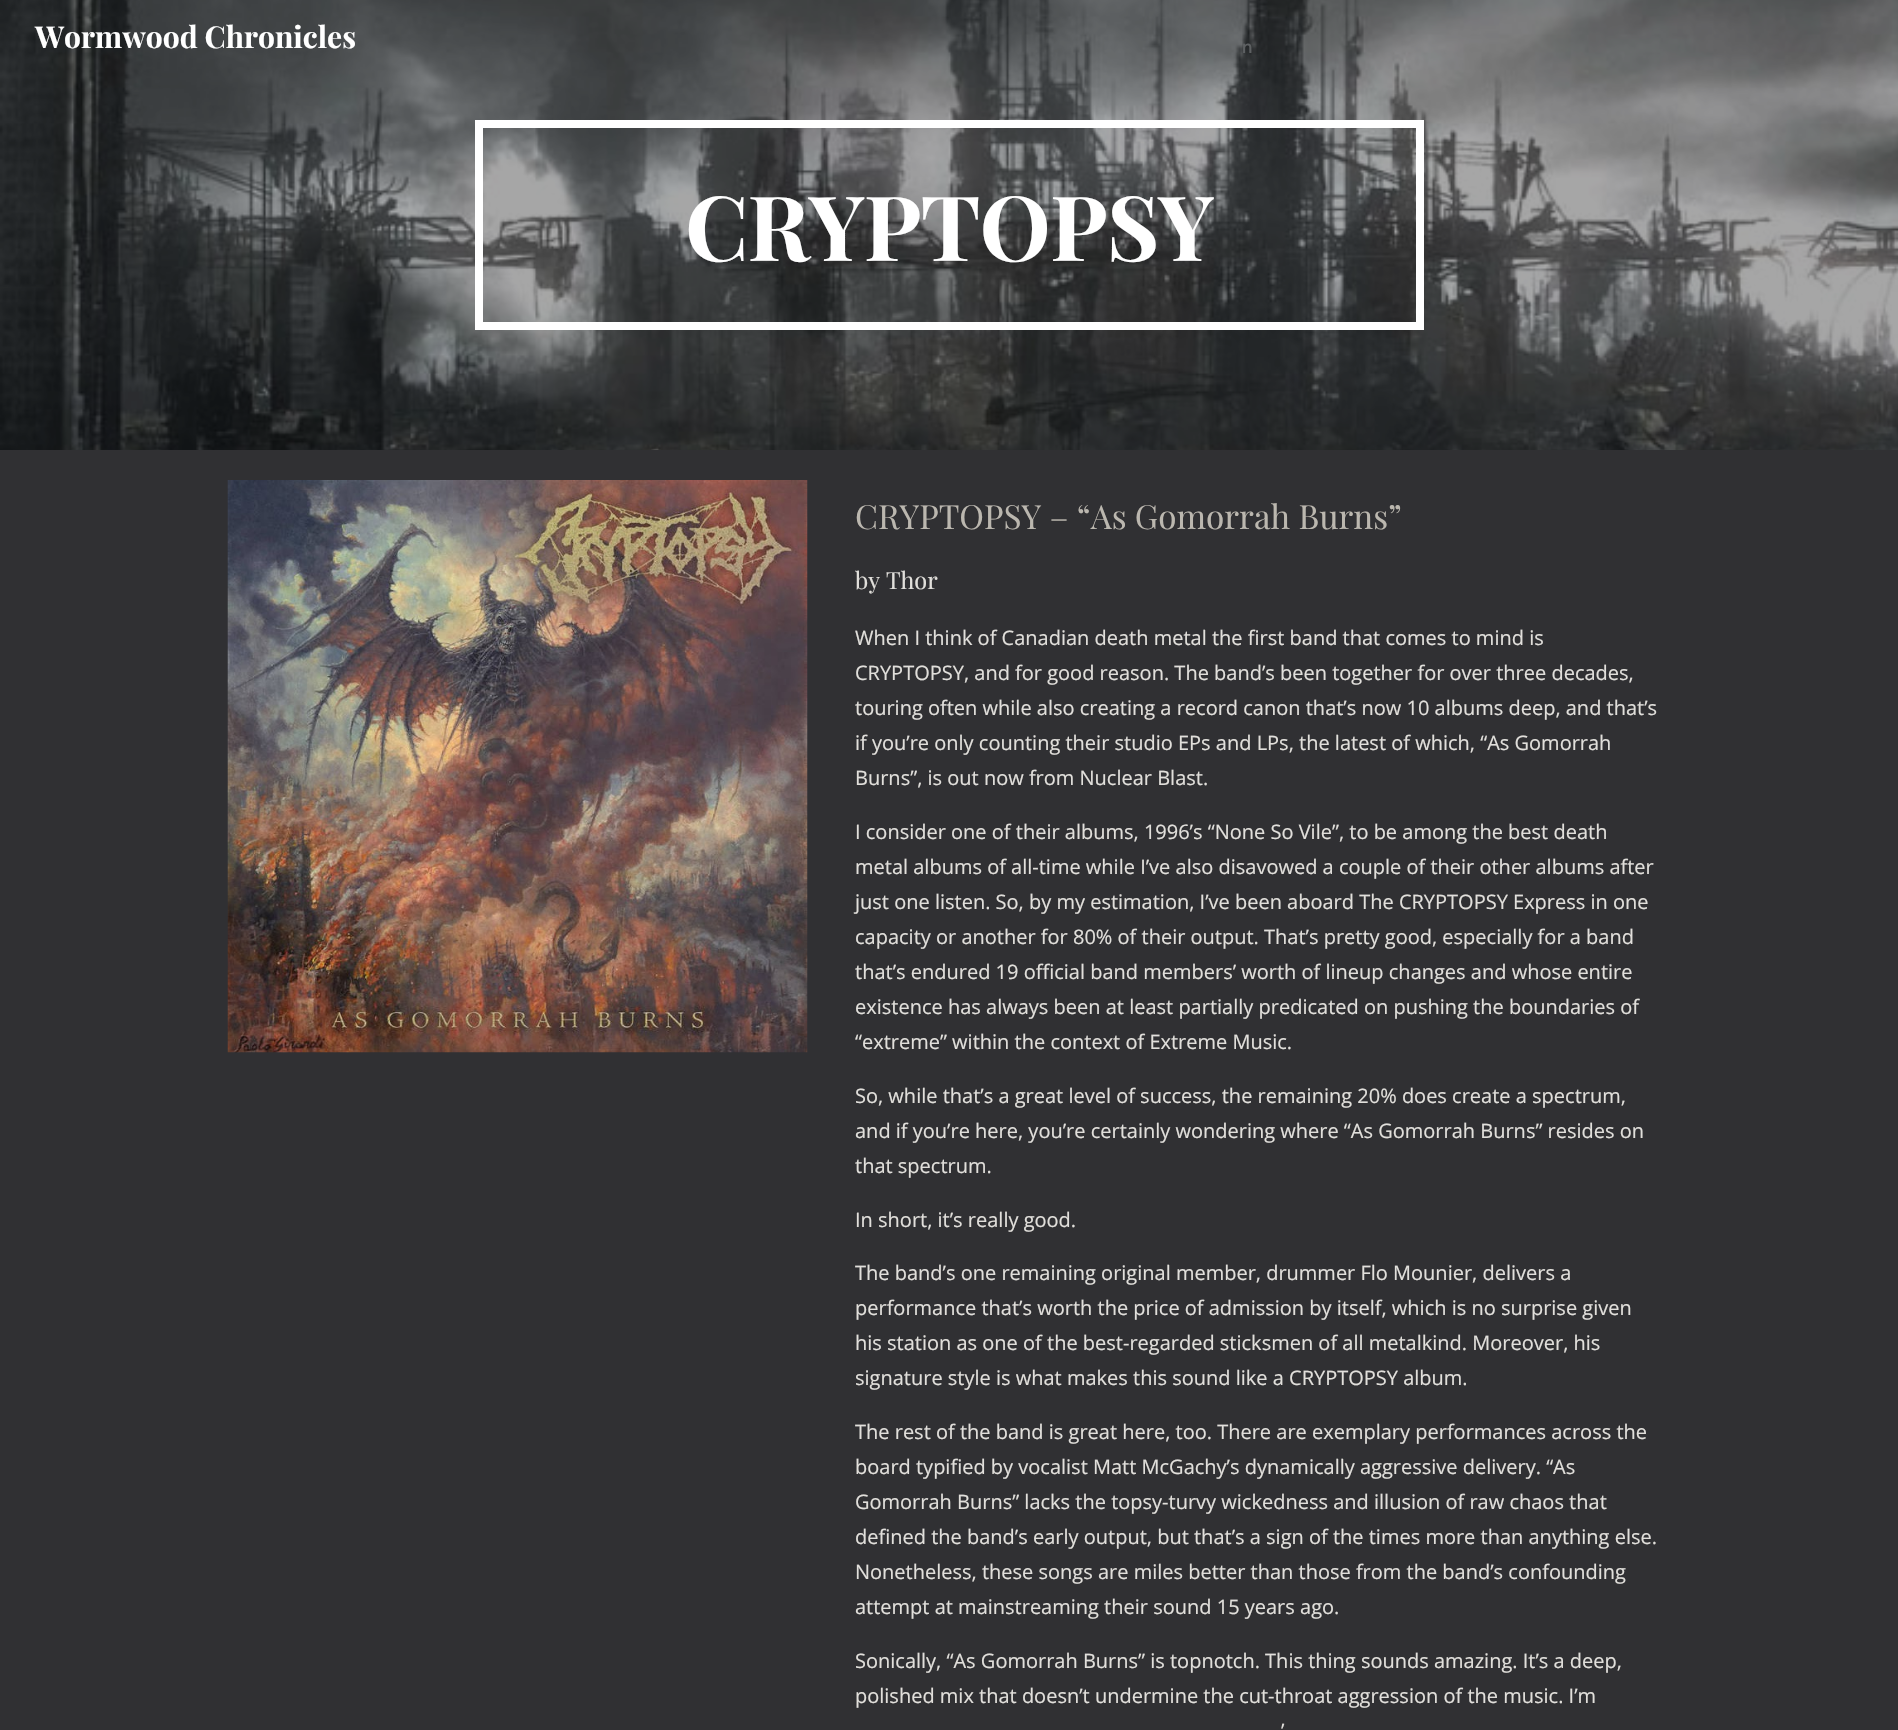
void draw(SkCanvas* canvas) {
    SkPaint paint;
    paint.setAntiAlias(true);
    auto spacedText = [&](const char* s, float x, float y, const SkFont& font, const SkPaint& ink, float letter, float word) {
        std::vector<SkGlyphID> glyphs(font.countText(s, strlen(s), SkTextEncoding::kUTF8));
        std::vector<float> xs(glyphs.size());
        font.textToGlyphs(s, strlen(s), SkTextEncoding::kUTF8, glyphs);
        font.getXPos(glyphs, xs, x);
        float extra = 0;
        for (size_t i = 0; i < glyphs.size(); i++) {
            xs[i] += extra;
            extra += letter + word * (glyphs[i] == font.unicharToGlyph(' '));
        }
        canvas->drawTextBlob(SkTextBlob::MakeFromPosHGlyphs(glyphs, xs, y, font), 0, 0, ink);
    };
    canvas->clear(0xFFFFFFFF);
    canvas->drawImageRect(SkImages::DeferredFromEncodedData(SkData::MakeFromFileName("img1.png")), SkRect::MakeXYWH(0, 0, 1898, 450), SkSamplingOptions());
    SkFont font1(fontMgr->matchFamilyStyle("Playfair Display", SkFontStyle::Bold()), 30);
    font1.setSubpixel(true);
    paint.setColor(0xFFFFFFFF);
    canvas->drawString("Wormwood Chronicles", 35, 48, font1, paint);
    paint.setStyle(SkPaint::kStroke_Style);
    paint.setStrokeWidth(8);
    canvas->drawRect(SkRect::MakeXYWH(479, 124, 941, 202), paint);
    SkFont font2(fontMgr->matchFamilyStyle("Playfair Display", SkFontStyle::Bold()), 90);
    font2.setSubpixel(true);
    paint.setStyle(SkPaint::kFill_Style);
    spacedText("CRYPTOPSY", 685, 261, font2, paint, -1, 0);
    paint.setColor(0xFF303033);
    canvas->drawRect(SkRect::MakeXYWH(0, 450, 1898, 1280), paint);
    canvas->drawImageRect(SkImages::DeferredFromEncodedData(SkData::MakeFromFileName("img2.png")), SkRect::MakeXYWH(227, 480, 581, 573), SkSamplingOptions());
    SkFont font3(fontMgr->matchFamilyStyle("Playfair Display", SkFontStyle::Normal()), 33.3f);
    font3.setSubpixel(true);
    paint.setColor(0xFFBBB7AF);
    canvas->drawString("CRYPTOPSY – “As Gomorrah Burns”", 855, 529, font3, paint);
    SkFont font4(fontMgr->matchFamilyStyle("Playfair Display", SkFontStyle::Normal()), 23.5f);
    font4.setSubpixel(true);
    paint.setColor(0xFFE1DFDB);
    canvas->drawString("by Thor", 855, 589, font4, paint);
    SkFont font5(fontMgr->matchFamilyStyle("Open Sans", SkFontStyle::Normal()), 20);
    font5.setSubpixel(true);
    canvas->drawString("When I think of Canadian death metal the first band that comes to mind is", 855, 645, font5, paint);
    canvas->drawString("CRYPTOPSY, and for good reason. The band’s been together for over three decades,", 855, 680, font5, paint);
    canvas->drawString("touring often while also creating a record canon that’s now 10 albums deep, and that’s", 855, 715, font5, paint);
    canvas->drawString("if you’re only counting their studio EPs and LPs, the latest of which, “As Gomorrah", 855, 750, font5, paint);
    canvas->drawString("Burns”, is out now from Nuclear Blast.", 855, 785, font5, paint);
    canvas->drawString("I consider one of their albums, 1996’s “None So Vile”, to be among the best death", 855, 839, font5, paint);
    canvas->drawString("metal albums of all-time while I’ve also disavowed a couple of their other albums after", 855, 874, font5, paint);
    canvas->drawString("just one listen. So, by my estimation, I’ve been aboard The CRYPTOPSY Express in one", 855, 909, font5, paint);
    canvas->drawString("capacity or another for 80% of their output. That’s pretty good, especially for a band", 855, 944, font5, paint);
    canvas->drawString("that’s endured 19 official band members’ worth of lineup changes and whose entire", 855, 979, font5, paint);
    canvas->drawString("existence has always been at least partially predicated on pushing the boundaries of", 855, 1014, font5, paint);
    canvas->drawString("“extreme” within the context of Extreme Music.", 855, 1049, font5, paint);
    canvas->drawString("So, while that’s a great level of success, the remaining 20% does create a spectrum,", 855, 1103, font5, paint);
    canvas->drawString("and if you’re here, you’re certainly wondering where “As Gomorrah Burns” resides on", 855, 1138, font5, paint);
    canvas->drawString("that spectrum.", 855, 1173, font5, paint);
    canvas->drawString("In short, it’s really good.", 855, 1227, font5, paint);
    canvas->drawString("The band’s one remaining original member, drummer Flo Mounier, delivers a", 855, 1280, font5, paint);
    canvas->drawString("performance that’s worth the price of admission by itself, which is no surprise given", 855, 1315, font5, paint);
    canvas->drawString("his station as one of the best-regarded sticksmen of all metalkind. Moreover, his", 855, 1350, font5, paint);
    canvas->drawString("signature style is what makes this sound like a CRYPTOPSY album.", 855, 1385, font5, paint);
    canvas->drawString("The rest of the band is great here, too. There are exemplary performances across the", 855, 1439, font5, paint);
    canvas->drawString("board typified by vocalist Matt McGachy’s dynamically aggressive delivery. “As", 855, 1474, font5, paint);
    canvas->drawString("Gomorrah Burns” lacks the topsy-turvy wickedness and illusion of raw chaos that", 855, 1509, font5, paint);
    canvas->drawString("defined the band’s early output, but that’s a sign of the times more than anything else.", 855, 1544, font5, paint);
    canvas->drawString("Nonetheless, these songs are miles better than those from the band’s confounding", 855, 1579, font5, paint);
    canvas->drawString("attempt at mainstreaming their sound 15 years ago.", 855, 1614, font5, paint);
    canvas->drawString("Sonically, “As Gomorrah Burns” is topnotch. This thing sounds amazing. It’s a deep,", 855, 1668, font5, paint);
    canvas->drawString("polished mix that doesn’t undermine the cut-throat aggression of the music. I’m", 855, 1703, font5, paint);
    canvas->drawString("’", 1281, 1738, font5, paint);
    SkFont font6(fontMgr->matchFamilyStyle("Google Sans", SkFontStyle(500, SkFontStyle::kNormal_Width, SkFontStyle::kUpright_Slant)), 18);
    font6.setSubpixel(true);
    paint.setColor(0xFF5D6062);
    canvas->drawString("n", 1242, 53, font6, paint);
}
